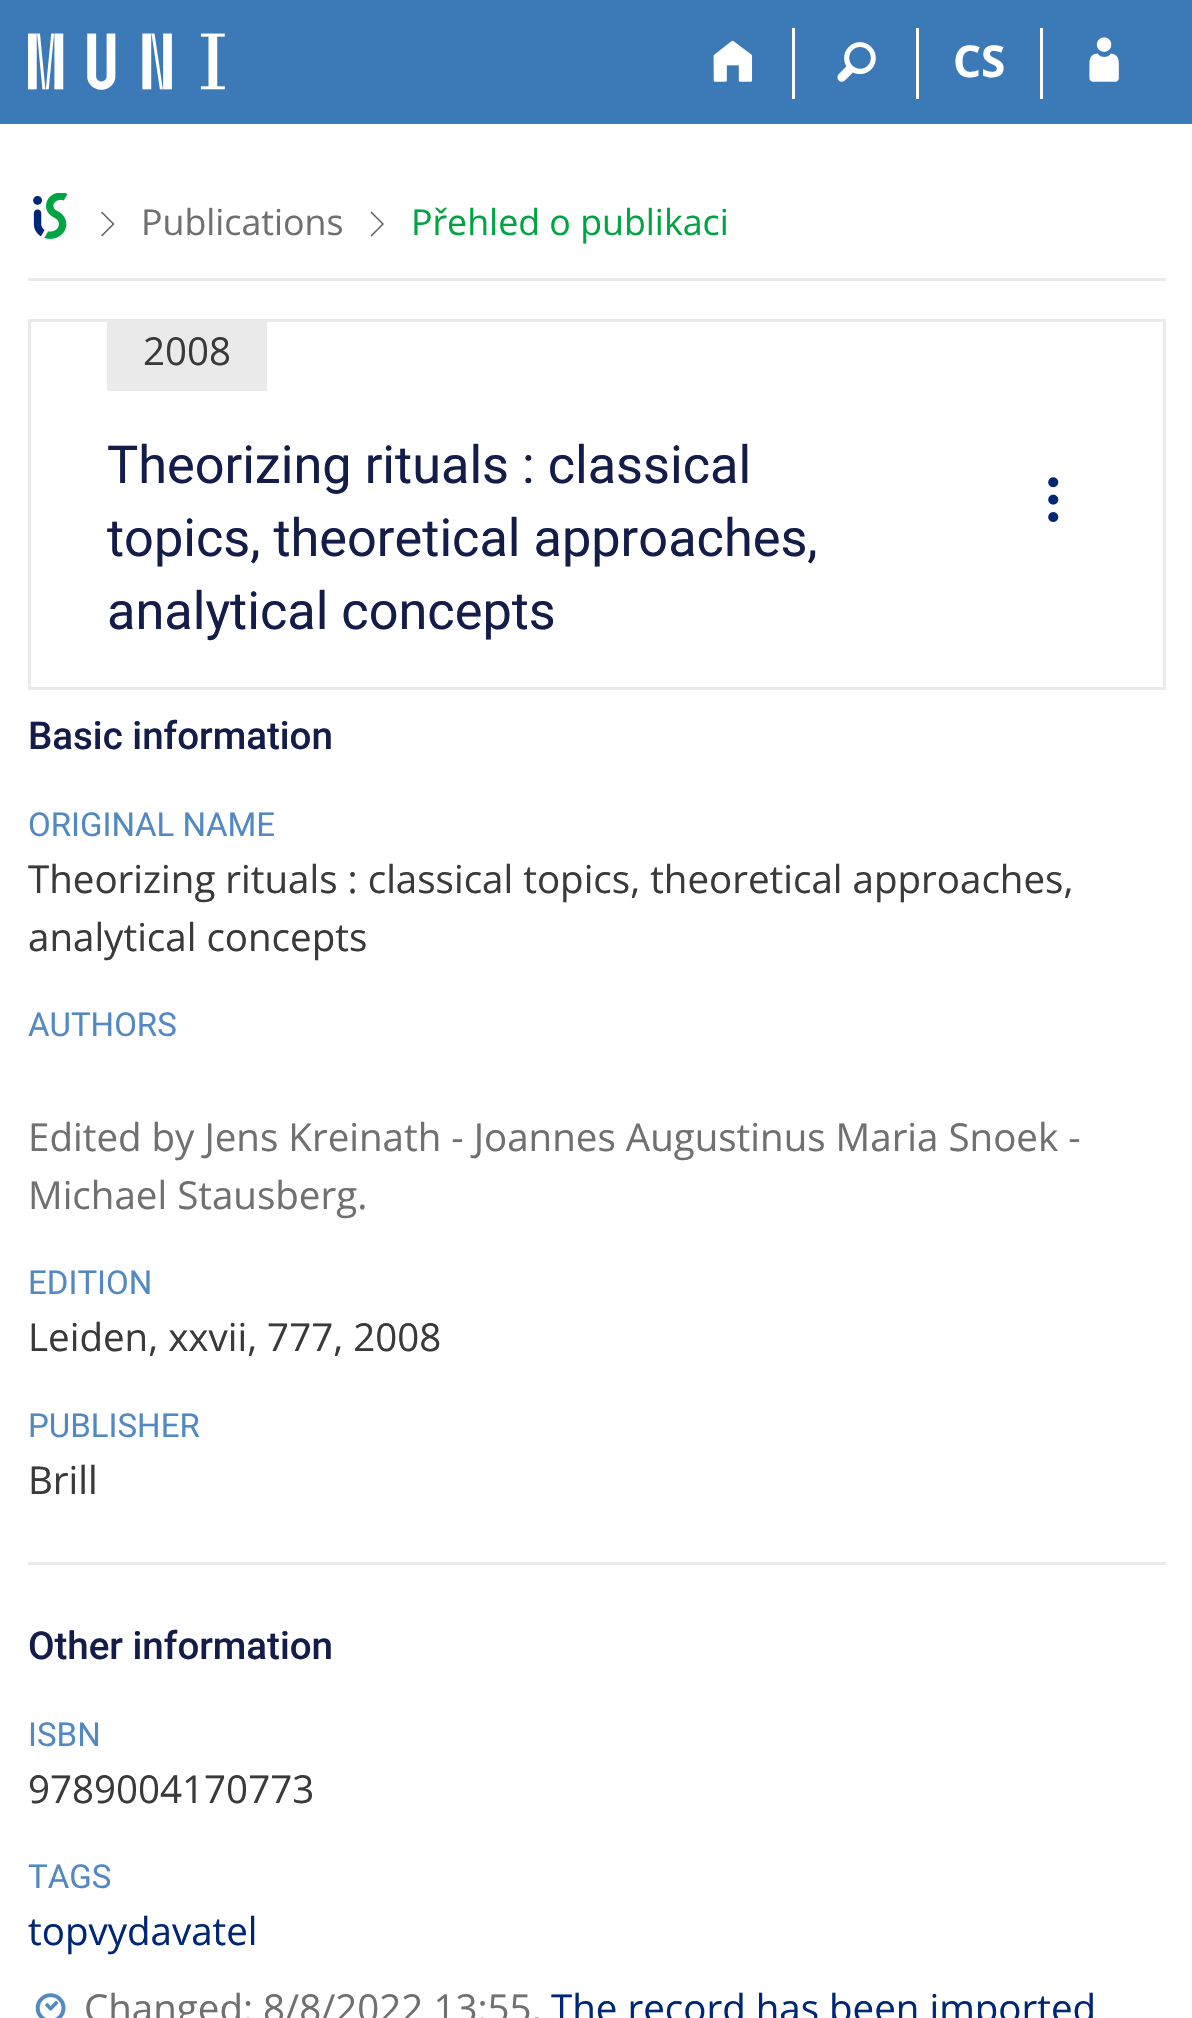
void draw(SkCanvas* canvas) {
    SkPaint paint;
    paint.setAntiAlias(true);
    canvas->clear(0xFFFFFFFF);
    paint.setColor(0xFF3C7AB7);
    canvas->drawRect(SkRect::MakeXYWH(0, 0, 1192, 124), paint);
    canvas->drawImageRect(SkImages::DeferredFromEncodedData(SkData::MakeFromFileName("img1.png")), SkRect::MakeXYWH(28, 33, 197, 57), SkSamplingOptions());
    paint.setColor(0xFFFFFFFF);
    canvas->drawRect(SkRect::MakeXYWH(792, 28, 3, 71), paint);
    canvas->drawImageRect(SkImages::DeferredFromEncodedData(SkData::MakeFromFileName("img2.png")), SkRect::MakeXYWH(713, 40, 40, 42), SkSamplingOptions());
    canvas->drawRect(SkRect::MakeXYWH(916, 28, 3, 71), paint);
    canvas->drawImageRect(SkImages::DeferredFromEncodedData(SkData::MakeFromFileName("img3.png")), SkRect::MakeXYWH(837, 42, 39, 40), SkSamplingOptions());
    canvas->drawRect(SkRect::MakeXYWH(1040, 28, 3, 71), paint);
    SkFont font1(fontMgr->matchFamilyStyle("Open Sans", SkFontStyle::Bold()), 44);
    font1.setSubpixel(true);
    canvas->drawString("CS", 953, 77, font1, paint);
    canvas->drawImageRect(SkImages::DeferredFromEncodedData(SkData::MakeFromFileName("img4.png")), SkRect::MakeXYWH(1089, 37, 30, 45), SkSamplingOptions());
    canvas->drawImageRect(SkImages::DeferredFromEncodedData(SkData::MakeFromFileName("img5.png")), SkRect::MakeXYWH(33, 193, 35, 46), SkSamplingOptions());
    paint.setColor(0xFF5A5A5A);
    canvas->drawPath(SkPathBuilder().moveTo(102, 236.5f).lineTo(101, 235.5f).lineTo(112.5f, 224).lineTo(101, 212.5f).lineTo(102, 211.5f).lineTo(114.5f, 224).close().detach(), paint);
    SkFont font2(fontMgr->matchFamilyStyle("Open Sans", SkFontStyle::Normal()), 35.75f);
    font2.setSubpixel(true);
    paint.setColor(0xFF707070);
    canvas->drawString("Publications", 141, 235, font2, paint);
    paint.setColor(0xFF5A5A5A);
    canvas->drawPath(SkPathBuilder().moveTo(371.5f, 236.5f).lineTo(370.5f, 235.5f).lineTo(382, 224).lineTo(370.5f, 212.5f).lineTo(371.5f, 211.5f).lineTo(384, 224).close().detach(), paint);
    paint.setColor(0xFF00A442);
    canvas->drawString("Přehled o publikaci", 411, 235, font2, paint);
    paint.setColor(0xFFEAEAEA);
    canvas->drawRect(SkRect::MakeXYWH(28, 278, 1138, 3), paint);
    paint.setStyle(SkPaint::kStroke_Style);
    paint.setStrokeWidth(3);
    canvas->drawRect(SkRect::MakeXYWH(29.5f, 320.5f, 1135, 368), paint);
    paint.setStyle(SkPaint::kFill_Style);
    canvas->drawRect(SkRect::MakeXYWH(107, 322, 160, 69), paint);
    SkFont font3(fontMgr->matchFamilyStyle("Open Sans", SkFontStyle::Normal()), 38.5f);
    font3.setSubpixel(true);
    paint.setColor(0xFF3A3A3A);
    canvas->drawString("2008", 143, 365, font3, paint);
    SkFont font4(fontMgr->matchFamilyStyle("Roboto", SkFontStyle::Normal()), 52.25f);
    font4.setSubpixel(true);
    paint.setColor(0xFF141C4A);
    canvas->drawString("Theorizing rituals : classical", 107, 483, font4, paint);
    canvas->drawString("topics, theoretical approaches,", 107, 556, font4, paint);
    canvas->drawString("analytical concepts", 107, 629, font4, paint);
    canvas->drawImageRect(SkImages::DeferredFromEncodedData(SkData::MakeFromFileName("img6.png")), SkRect::MakeXYWH(1048, 477, 11, 45), SkSamplingOptions());
    SkFont font5(fontMgr->matchFamilyStyle("Roboto", SkFontStyle(500, SkFontStyle::kNormal_Width, SkFontStyle::kUpright_Slant)), 38.5f);
    font5.setSubpixel(true);
    canvas->drawString("Basic information", 28, 749, font5, paint);
    SkFont font6(fontMgr->matchFamilyStyle("Roboto", SkFontStyle::Normal()), 33);
    font6.setSubpixel(true);
    paint.setColor(0xFF5389C2);
    canvas->drawString("ORIGINAL NAME", 28, 836, font6, paint);
    paint.setColor(0xFF3A3A3A);
    canvas->drawString("Theorizing rituals : classical topics, theoretical approaches,", 28, 893, font3, paint);
    canvas->drawString("analytical concepts", 28, 951, font3, paint);
    paint.setColor(0xFF5389C2);
    canvas->drawString("AUTHORS", 28, 1036, font6, paint);
    paint.setColor(0xFF707070);
    canvas->drawString("Edited by Jens Kreinath - Joannes Augustinus Maria Snoek -", 28, 1151, font3, paint);
    canvas->drawString("Michael Stausberg.", 28, 1209, font3, paint);
    paint.setColor(0xFF5389C2);
    canvas->drawString("EDITION", 28, 1294, font6, paint);
    paint.setColor(0xFF3A3A3A);
    canvas->drawString("Leiden, xxvii, 777, 2008", 28, 1351, font3, paint);
    paint.setColor(0xFF5389C2);
    canvas->drawString("PUBLISHER", 28, 1437, font6, paint);
    paint.setColor(0xFF3A3A3A);
    canvas->drawString("Brill", 28, 1494, font3, paint);
    paint.setColor(0xFFEAEAEA);
    canvas->drawRect(SkRect::MakeXYWH(28, 1562, 1138, 3), paint);
    paint.setColor(0xFF141C4A);
    canvas->drawString("Other information", 28, 1659, font5, paint);
    paint.setColor(0xFF5389C2);
    canvas->drawString("ISBN", 28, 1746, font6, paint);
    paint.setColor(0xFF3A3A3A);
    canvas->drawString("9789004170773", 28, 1803, font3, paint);
    paint.setColor(0xFF5389C2);
    canvas->drawString("TAGS", 28, 1888, font6, paint);
    paint.setColor(0xFF002776);
    canvas->drawString("topvydavatel", 28, 1945, font3, paint);
    canvas->drawImageRect(SkImages::DeferredFromEncodedData(SkData::MakeFromFileName("img7.png")), SkRect::MakeXYWH(35, 1993, 31, 25), SkSamplingOptions());
    paint.setColor(0xFF707070);
    canvas->drawString("Changed: 8/8/2022 13:55,", 84, 2022, font3, paint);
    paint.setColor(0xFF002776);
    canvas->drawString("The record has been imported", 551, 2022, font3, paint);
}
